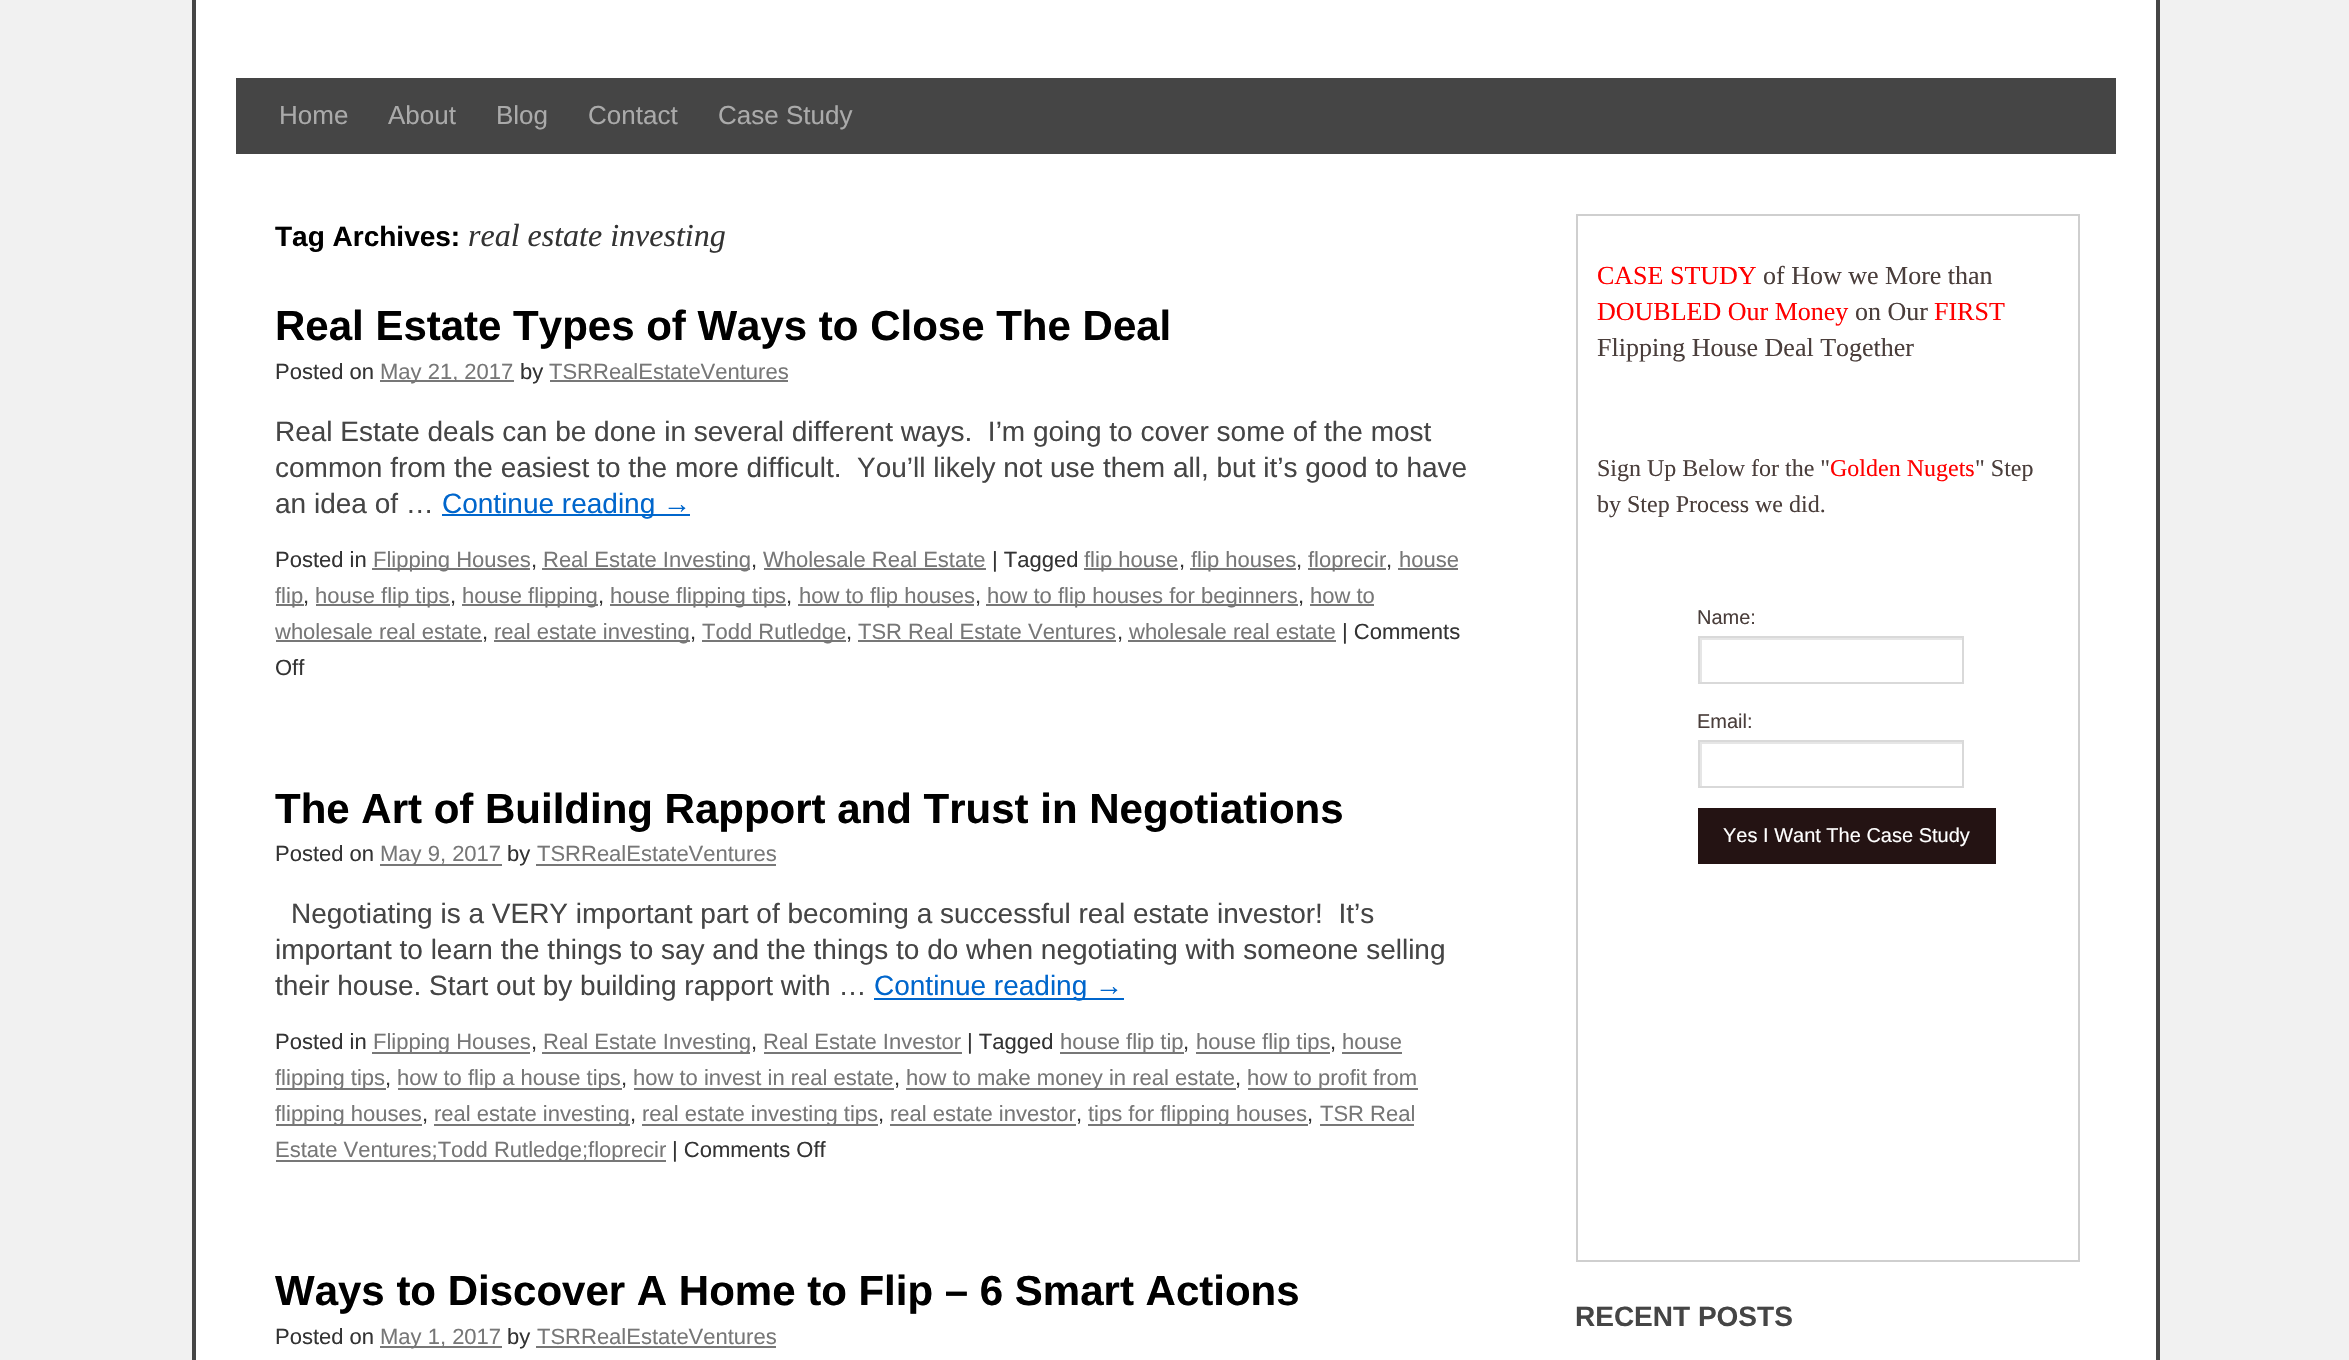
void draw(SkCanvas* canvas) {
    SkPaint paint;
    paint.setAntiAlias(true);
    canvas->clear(0xFFF1F1F1);
    paint.setColor(0xFFFFFFFF);
    canvas->drawRect(SkRect::MakeXYWH(194, -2, 1964, 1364), paint);
    paint.setStyle(SkPaint::kStroke_Style);
    paint.setStrokeWidth(4);
    paint.setColor(0xFF454545);
    canvas->drawRect(SkRect::MakeXYWH(194, -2, 1964, 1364), paint);
    paint.setStyle(SkPaint::kFill_Style);
    canvas->drawRect(SkRect::MakeXYWH(236, 78, 1880, 76), paint);
    SkFont font1(fontMgr->matchFamilyStyle("Liberation Sans", SkFontStyle::Normal()), 26);
    font1.setSubpixel(true);
    paint.setColor(0xFFAAAAAA);
    canvas->drawString("Home", 279, 124, font1, paint);
    canvas->drawString("About", 388, 124, font1, paint);
    canvas->drawString("Blog", 496, 124, font1, paint);
    canvas->drawString("Contact", 588, 124, font1, paint);
    canvas->drawString("Case Study", 718, 124, font1, paint);
    SkFont font2(fontMgr->matchFamilyStyle("Liberation Sans", SkFontStyle::Bold()), 28);
    font2.setSubpixel(true);
    paint.setColor(0xFF000000);
    canvas->drawString("Tag Archives:", 275, 246, font2, paint);
    SkFont font3(fontMgr->matchFamilyStyle("Liberation Serif", SkFontStyle::Italic()), 32);
    font3.setSubpixel(true);
    paint.setColor(0xFF333333);
    canvas->drawString("real estate investing", 468, 246, font3, paint);
    SkFont font4(fontMgr->matchFamilyStyle("Liberation Sans", SkFontStyle::Bold()), 42);
    font4.setSubpixel(true);
    paint.setColor(0xFF000000);
    canvas->drawString("Real Estate Types of Ways to Close The Deal", 275, 340, font4, paint);
    SkFont font5(fontMgr->matchFamilyStyle("Liberation Sans", SkFontStyle::Normal()), 22);
    font5.setSubpixel(true);
    paint.setColor(0xFF333333);
    canvas->drawString("Posted on", 275, 379, font5, paint);
    paint.setColor(0xFF777777);
    canvas->drawRect(SkRect::MakeXYWH(380, 380, 134, 2), paint);
    canvas->drawString("May 21, 2017", 380, 379, font5, paint);
    paint.setColor(0xFF333333);
    canvas->drawString("by", 520, 379, font5, paint);
    paint.setColor(0xFF777777);
    canvas->drawString("TSRRealEstateVentures", 549, 379, font5, paint);
    canvas->drawRect(SkRect::MakeXYWH(550, 380, 238, 2), paint);
    SkFont font6(fontMgr->matchFamilyStyle("Liberation Sans", SkFontStyle::Normal()), 28);
    font6.setSubpixel(true);
    paint.setColor(0xFF454545);
    canvas->drawString("Real Estate deals can be done in several different ways.  I’m going to cover some of the most", 275, 441, font6, paint);
    canvas->drawString("common from the easiest to the more difficult.  You’ll likely not use them all, but it’s good to have", 275, 477, font6, paint);
    canvas->drawString("an idea of …", 275, 513, font6, paint);
    paint.setColor(0xFF0066CC);
    canvas->drawRect(SkRect::MakeXYWH(442, 514, 248, 2), paint);
    canvas->drawString("Continue reading →", 442, 513, font6, paint);
    paint.setColor(0xFF333333);
    canvas->drawString("Posted in", 275, 567, font5, paint);
    paint.setColor(0xFF777777);
    canvas->drawRect(SkRect::MakeXYWH(372, 568, 158, 2), paint);
    canvas->drawString("Flipping Houses", 373, 567, font5, paint);
    paint.setColor(0xFF333333);
    canvas->drawString(",", 531, 567, font5, paint);
    paint.setColor(0xFF777777);
    canvas->drawRect(SkRect::MakeXYWH(542, 568, 208, 2), paint);
    canvas->drawString("Real Estate Investing", 543, 567, font5, paint);
    paint.setColor(0xFF333333);
    canvas->drawString(",", 751, 567, font5, paint);
    paint.setColor(0xFF777777);
    canvas->drawRect(SkRect::MakeXYWH(764, 568, 222, 2), paint);
    canvas->drawString("Wholesale Real Estate", 763, 567, font5, paint);
    paint.setColor(0xFF333333);
    canvas->drawString("| Tagged", 992, 567, font5, paint);
    paint.setColor(0xFF777777);
    canvas->drawRect(SkRect::MakeXYWH(1084, 568, 94, 2), paint);
    canvas->drawString("flip house", 1084, 567, font5, paint);
    paint.setColor(0xFF333333);
    canvas->drawString(",", 1179, 567, font5, paint);
    paint.setColor(0xFF777777);
    canvas->drawRect(SkRect::MakeXYWH(1190, 568, 106, 2), paint);
    canvas->drawString("flip houses", 1191, 567, font5, paint);
    paint.setColor(0xFF333333);
    canvas->drawString(",", 1296, 567, font5, paint);
    paint.setColor(0xFF777777);
    canvas->drawRect(SkRect::MakeXYWH(1308, 568, 78, 2), paint);
    canvas->drawString("floprecir", 1308, 567, font5, paint);
    paint.setColor(0xFF333333);
    canvas->drawString(",", 1386, 567, font5, paint);
    paint.setColor(0xFF777777);
    canvas->drawRect(SkRect::MakeXYWH(1398, 568, 60, 2), paint);
    canvas->drawString("house", 1399, 567, font5, paint);
    canvas->drawRect(SkRect::MakeXYWH(276, 604, 28, 2), paint);
    canvas->drawString("flip", 275, 603, font5, paint);
    paint.setColor(0xFF333333);
    canvas->drawString(",", 303, 603, font5, paint);
    paint.setColor(0xFF777777);
    canvas->drawRect(SkRect::MakeXYWH(316, 604, 134, 2), paint);
    canvas->drawString("house flip tips", 315, 603, font5, paint);
    paint.setColor(0xFF333333);
    canvas->drawString(",", 450, 603, font5, paint);
    paint.setColor(0xFF777777);
    canvas->drawRect(SkRect::MakeXYWH(462, 604, 136, 2), paint);
    canvas->drawString("house flipping", 462, 603, font5, paint);
    paint.setColor(0xFF333333);
    canvas->drawString(",", 598, 603, font5, paint);
    paint.setColor(0xFF777777);
    canvas->drawRect(SkRect::MakeXYWH(610, 604, 176, 2), paint);
    canvas->drawString("house flipping tips", 610, 603, font5, paint);
    paint.setColor(0xFF333333);
    canvas->drawString(",", 786, 603, font5, paint);
    paint.setColor(0xFF777777);
    canvas->drawRect(SkRect::MakeXYWH(798, 604, 176, 2), paint);
    canvas->drawString("how to flip houses", 799, 603, font5, paint);
    paint.setColor(0xFF333333);
    canvas->drawString(",", 975, 603, font5, paint);
    paint.setColor(0xFF777777);
    canvas->drawRect(SkRect::MakeXYWH(986, 604, 312, 2), paint);
    canvas->drawString("how to flip houses for beginners", 987, 603, font5, paint);
    paint.setColor(0xFF333333);
    canvas->drawString(",", 1298, 603, font5, paint);
    paint.setColor(0xFF777777);
    canvas->drawRect(SkRect::MakeXYWH(1310, 604, 64, 2), paint);
    canvas->drawString("how to", 1310, 603, font5, paint);
    canvas->drawString("wholesale real estate", 275, 639, font5, paint);
    paint.setColor(0xFF333333);
    canvas->drawString(",", 482, 639, font5, paint);
    paint.setColor(0xFF777777);
    canvas->drawRect(SkRect::MakeXYWH(276, 640, 206, 2), paint);
    canvas->drawRect(SkRect::MakeXYWH(494, 640, 196, 2), paint);
    canvas->drawString("real estate investing", 494, 639, font5, paint);
    paint.setColor(0xFF333333);
    canvas->drawString(",", 690, 639, font5, paint);
    paint.setColor(0xFF777777);
    canvas->drawRect(SkRect::MakeXYWH(702, 640, 144, 2), paint);
    canvas->drawString("Todd Rutledge", 702, 639, font5, paint);
    paint.setColor(0xFF333333);
    canvas->drawString(",", 846, 639, font5, paint);
    paint.setColor(0xFF777777);
    canvas->drawString("TSR Real Estate Ventures", 858, 639, font5, paint);
    paint.setColor(0xFF333333);
    canvas->drawString(",", 1117, 639, font5, paint);
    paint.setColor(0xFF777777);
    canvas->drawRect(SkRect::MakeXYWH(858, 640, 258, 2), paint);
    canvas->drawRect(SkRect::MakeXYWH(1128, 640, 208, 2), paint);
    canvas->drawString("wholesale real estate", 1129, 639, font5, paint);
    paint.setColor(0xFF333333);
    canvas->drawString("| Comments", 1342, 639, font5, paint);
    canvas->drawString("Off", 275, 675, font5, paint);
    paint.setColor(0xFF000000);
    canvas->drawString("The Art of Building Rapport and Trust in Negotiations", 275, 823, font4, paint);
    paint.setColor(0xFF333333);
    canvas->drawString("Posted on", 275, 861, font5, paint);
    paint.setColor(0xFF777777);
    canvas->drawRect(SkRect::MakeXYWH(380, 864, 122, 2), paint);
    canvas->drawString("May 9, 2017", 380, 861, font5, paint);
    paint.setColor(0xFF333333);
    canvas->drawString("by", 507, 861, font5, paint);
    paint.setColor(0xFF777777);
    canvas->drawString("TSRRealEstateVentures", 537, 861, font5, paint);
    canvas->drawRect(SkRect::MakeXYWH(536, 864, 240, 2), paint);
    paint.setColor(0xFF454545);
    canvas->drawString("Negotiating is a VERY important part of becoming a successful real estate investor!  It’s", 291, 923, font6, paint);
    canvas->drawString("important to learn the things to say and the things to do when negotiating with someone selling", 275, 959, font6, paint);
    canvas->drawString("their house. Start out by building rapport with …", 275, 995, font6, paint);
    paint.setColor(0xFF0066CC);
    canvas->drawRect(SkRect::MakeXYWH(874, 998, 250, 2), paint);
    canvas->drawString("Continue reading →", 874, 995, font6, paint);
    paint.setColor(0xFF333333);
    canvas->drawString("Posted in", 275, 1049, font5, paint);
    paint.setColor(0xFF777777);
    canvas->drawRect(SkRect::MakeXYWH(372, 1052, 158, 2), paint);
    canvas->drawString("Flipping Houses", 373, 1049, font5, paint);
    paint.setColor(0xFF333333);
    canvas->drawString(",", 531, 1049, font5, paint);
    paint.setColor(0xFF777777);
    canvas->drawRect(SkRect::MakeXYWH(542, 1052, 208, 2), paint);
    canvas->drawString("Real Estate Investing", 543, 1049, font5, paint);
    paint.setColor(0xFF333333);
    canvas->drawString(",", 751, 1049, font5, paint);
    paint.setColor(0xFF777777);
    canvas->drawRect(SkRect::MakeXYWH(764, 1052, 198, 2), paint);
    canvas->drawString("Real Estate Investor", 763, 1049, font5, paint);
    paint.setColor(0xFF333333);
    canvas->drawString("| Tagged", 967, 1049, font5, paint);
    paint.setColor(0xFF777777);
    canvas->drawRect(SkRect::MakeXYWH(1060, 1052, 124, 2), paint);
    canvas->drawString("house flip tip", 1060, 1049, font5, paint);
    paint.setColor(0xFF333333);
    canvas->drawString(",", 1183, 1049, font5, paint);
    paint.setColor(0xFF777777);
    canvas->drawRect(SkRect::MakeXYWH(1196, 1052, 134, 2), paint);
    canvas->drawString("house flip tips", 1196, 1049, font5, paint);
    paint.setColor(0xFF333333);
    canvas->drawString(",", 1330, 1049, font5, paint);
    paint.setColor(0xFF777777);
    canvas->drawRect(SkRect::MakeXYWH(1342, 1052, 60, 2), paint);
    canvas->drawString("house", 1342, 1049, font5, paint);
    canvas->drawRect(SkRect::MakeXYWH(276, 1088, 110, 2), paint);
    canvas->drawString("flipping tips", 275, 1085, font5, paint);
    paint.setColor(0xFF333333);
    canvas->drawString(",", 385, 1085, font5, paint);
    paint.setColor(0xFF777777);
    canvas->drawRect(SkRect::MakeXYWH(398, 1088, 224, 2), paint);
    canvas->drawString("how to flip a house tips", 397, 1085, font5, paint);
    paint.setColor(0xFF333333);
    canvas->drawString(",", 621, 1085, font5, paint);
    paint.setColor(0xFF777777);
    canvas->drawString("how to invest in real estate", 633, 1085, font5, paint);
    paint.setColor(0xFF333333);
    canvas->drawString(",", 894, 1085, font5, paint);
    paint.setColor(0xFF777777);
    canvas->drawRect(SkRect::MakeXYWH(634, 1088, 260, 2), paint);
    canvas->drawRect(SkRect::MakeXYWH(906, 1088, 330, 2), paint);
    canvas->drawString("how to make money in real estate", 906, 1085, font5, paint);
    paint.setColor(0xFF333333);
    canvas->drawString(",", 1235, 1085, font5, paint);
    paint.setColor(0xFF777777);
    canvas->drawRect(SkRect::MakeXYWH(1248, 1088, 170, 2), paint);
    canvas->drawString("how to profit from", 1247, 1085, font5, paint);
    canvas->drawRect(SkRect::MakeXYWH(276, 1124, 146, 2), paint);
    canvas->drawString("flipping houses", 275, 1121, font5, paint);
    paint.setColor(0xFF333333);
    canvas->drawString(",", 422, 1121, font5, paint);
    paint.setColor(0xFF777777);
    canvas->drawRect(SkRect::MakeXYWH(434, 1124, 196, 2), paint);
    canvas->drawString("real estate investing", 434, 1121, font5, paint);
    paint.setColor(0xFF333333);
    canvas->drawString(",", 630, 1121, font5, paint);
    paint.setColor(0xFF777777);
    canvas->drawRect(SkRect::MakeXYWH(642, 1124, 236, 2), paint);
    canvas->drawString("real estate investing tips", 642, 1121, font5, paint);
    paint.setColor(0xFF333333);
    canvas->drawString(",", 878, 1121, font5, paint);
    paint.setColor(0xFF777777);
    canvas->drawString("real estate investor", 890, 1121, font5, paint);
    paint.setColor(0xFF333333);
    canvas->drawString(",", 1076, 1121, font5, paint);
    paint.setColor(0xFF777777);
    canvas->drawRect(SkRect::MakeXYWH(890, 1124, 186, 2), paint);
    canvas->drawRect(SkRect::MakeXYWH(1088, 1124, 220, 2), paint);
    canvas->drawString("tips for flipping houses", 1088, 1121, font5, paint);
    paint.setColor(0xFF333333);
    canvas->drawString(",", 1307, 1121, font5, paint);
    paint.setColor(0xFF777777);
    canvas->drawRect(SkRect::MakeXYWH(1320, 1124, 94, 2), paint);
    canvas->drawString("TSR Real", 1320, 1121, font5, paint);
    canvas->drawRect(SkRect::MakeXYWH(276, 1160, 390, 2), paint);
    canvas->drawString("Estate Ventures;Todd Rutledge;floprecir", 275, 1157, font5, paint);
    paint.setColor(0xFF333333);
    canvas->drawString("| Comments Off", 672, 1157, font5, paint);
    paint.setColor(0xFF000000);
    canvas->drawString("Ways to Discover A Home to Flip – 6 Smart Actions", 275, 1305, font4, paint);
    paint.setColor(0xFF333333);
    canvas->drawString("Posted on", 275, 1344, font5, paint);
    paint.setColor(0xFF777777);
    canvas->drawRect(SkRect::MakeXYWH(380, 1346, 122, 2), paint);
    canvas->drawString("May 1, 2017", 380, 1344, font5, paint);
    paint.setColor(0xFF333333);
    canvas->drawString("by", 507, 1344, font5, paint);
    paint.setColor(0xFF777777);
    canvas->drawString("TSRRealEstateVentures", 537, 1344, font5, paint);
    canvas->drawRect(SkRect::MakeXYWH(536, 1346, 240, 2), paint);
    paint.setStyle(SkPaint::kStroke_Style);
    paint.setStrokeWidth(2);
    paint.setColor(0xFFCFCFCF);
    canvas->drawRect(SkRect::MakeXYWH(1577, 215, 502, 1046), paint);
    SkFont font7(fontMgr->matchFamilyStyle("Liberation Serif", SkFontStyle::Normal()), 26);
    font7.setSubpixel(true);
    paint.setStyle(SkPaint::kFill_Style);
    paint.setColor(0xFFFF0000);
    canvas->drawString("CASE STUDY", 1597, 284, font7, paint);
    paint.setColor(0xFF4A3E3B);
    canvas->drawString("of How we More than", 1763, 284, font7, paint);
    paint.setColor(0xFFFF0000);
    canvas->drawString("DOUBLED Our Money", 1597, 320, font7, paint);
    paint.setColor(0xFF4A3E3B);
    canvas->drawString("on Our", 1855, 320, font7, paint);
    paint.setColor(0xFFFF0000);
    canvas->drawString("FIRST", 1934, 320, font7, paint);
    paint.setColor(0xFF4A3E3B);
    canvas->drawString("Flipping House Deal Together", 1597, 356, font7, paint);
    SkFont font8(fontMgr->matchFamilyStyle("Liberation Serif", SkFontStyle::Normal()), 24);
    font8.setSubpixel(true);
    canvas->drawString("Sign Up Below for the \"", 1597, 476, font8, paint);
    paint.setColor(0xFFFF0000);
    canvas->drawString("Golden Nugets", 1830, 476, font8, paint);
    paint.setColor(0xFF4A3E3B);
    canvas->drawString("\" Step", 1975, 476, font8, paint);
    canvas->drawString("by Step Process we did.", 1597, 512, font8, paint);
    SkFont font9(fontMgr->matchFamilyStyle("Liberation Sans", SkFontStyle::Normal()), 20);
    font9.setSubpixel(true);
    canvas->drawString("Name:", 1697, 624, font9, paint);
    canvas->save();
    canvas->clipRect(SkRect::MakeXYWH(1700, 638, 262, 44));
    paint.setColor(0xFFE6E6E6);
    canvas->drawPath(SkPathBuilder(SkPathFillType::kEvenOdd).moveTo(1502, 440).lineTo(2160, 440).lineTo(2160, 880).lineTo(1502, 880).close().moveTo(1702, 640).lineTo(1964, 640).lineTo(1964, 684).lineTo(1702, 684).close().detach(), paint);
    canvas->restore();
    paint.setStyle(SkPaint::kStroke_Style);
    paint.setColor(0xFFD9D9D9);
    canvas->drawRect(SkRect::MakeXYWH(1699, 637, 264, 46), paint);
    paint.setStyle(SkPaint::kFill_Style);
    paint.setColor(0xFF4A3E3B);
    canvas->drawString("Email:", 1697, 728, font9, paint);
    canvas->save();
    canvas->clipRect(SkRect::MakeXYWH(1700, 742, 262, 44));
    paint.setColor(0xFFE6E6E6);
    canvas->drawPath(SkPathBuilder(SkPathFillType::kEvenOdd).moveTo(1502, 544).lineTo(2160, 544).lineTo(2160, 984).lineTo(1502, 984).close().moveTo(1702, 744).lineTo(1964, 744).lineTo(1964, 788).lineTo(1702, 788).close().detach(), paint);
    canvas->restore();
    paint.setStyle(SkPaint::kStroke_Style);
    paint.setColor(0xFFD9D9D9);
    canvas->drawRect(SkRect::MakeXYWH(1699, 741, 264, 46), paint);
    paint.setStyle(SkPaint::kFill_Style);
    paint.setColor(0xFF241313);
    canvas->drawRect(SkRect::MakeXYWH(1698, 808, 298, 56), paint);
    paint.setColor(0xFFFFFFFF);
    canvas->drawString("Yes I Want The Case Study", 1723, 842, font9, paint);
    paint.setColor(0xFF454545);
    canvas->drawString("RECENT POSTS", 1575, 1326, font2, paint);
}
